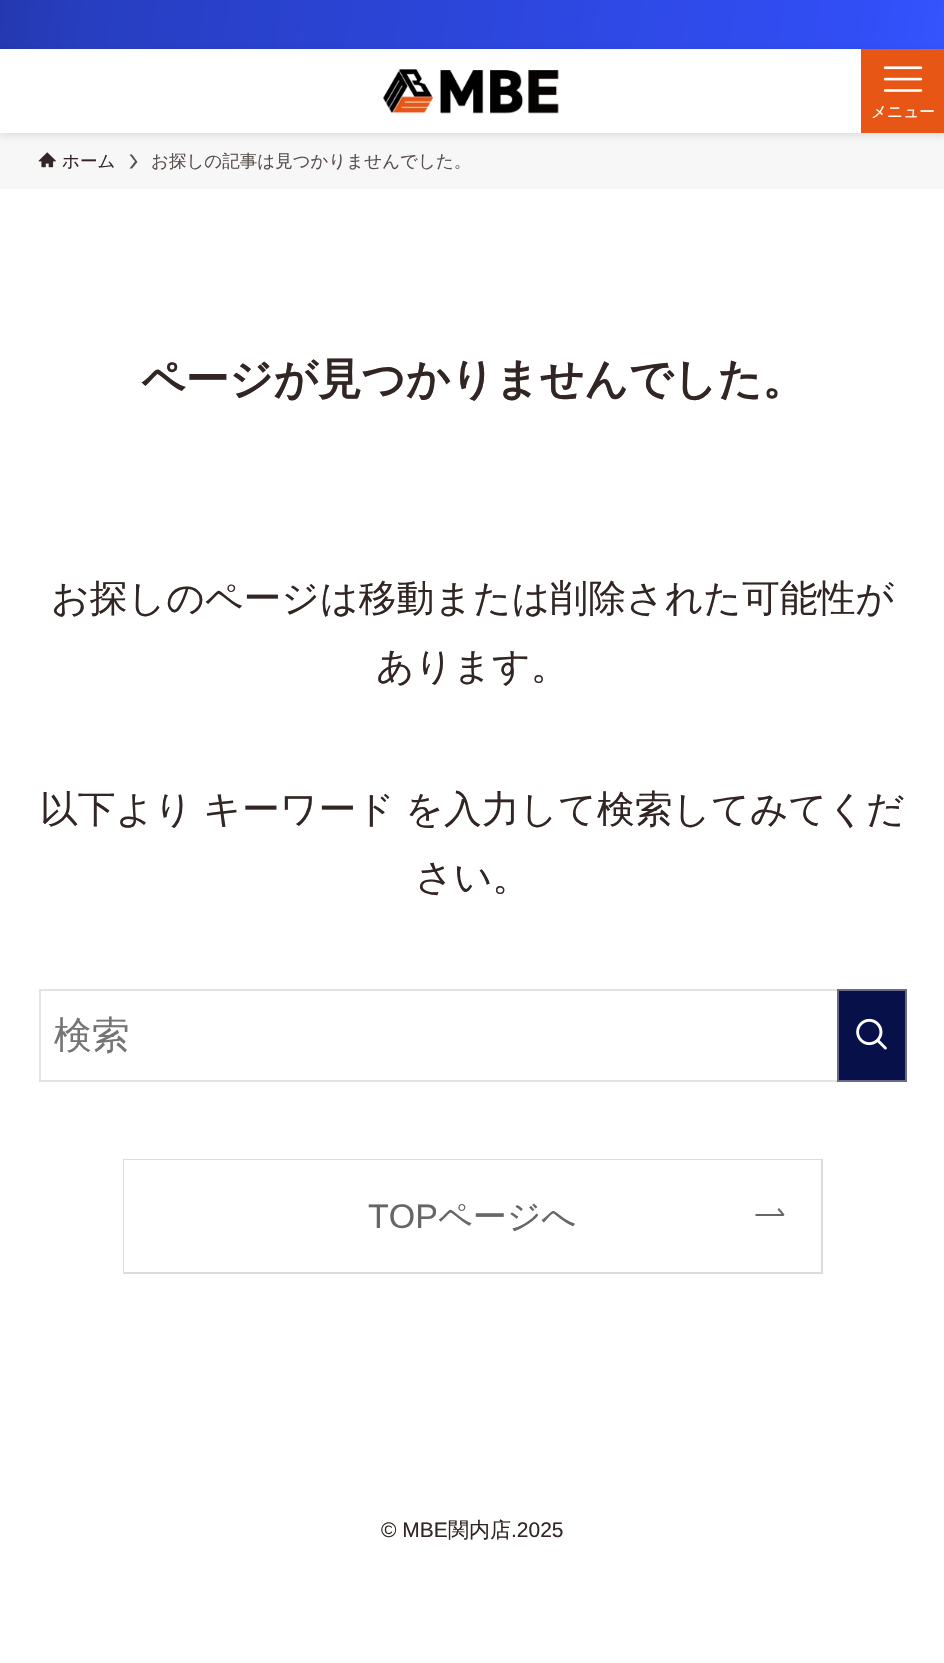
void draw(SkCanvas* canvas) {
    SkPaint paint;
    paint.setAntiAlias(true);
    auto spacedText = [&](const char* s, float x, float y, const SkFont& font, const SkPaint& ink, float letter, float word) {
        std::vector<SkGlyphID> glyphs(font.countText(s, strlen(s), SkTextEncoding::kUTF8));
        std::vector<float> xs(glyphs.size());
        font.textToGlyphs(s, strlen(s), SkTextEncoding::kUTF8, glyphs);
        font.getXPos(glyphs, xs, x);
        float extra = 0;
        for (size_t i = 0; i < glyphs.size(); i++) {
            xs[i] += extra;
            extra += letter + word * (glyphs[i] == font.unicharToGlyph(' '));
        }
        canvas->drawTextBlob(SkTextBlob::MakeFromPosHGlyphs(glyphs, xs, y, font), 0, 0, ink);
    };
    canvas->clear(0xFFFFFFFF);
    {
        const SkColor colors[] = {0xFF2338AF, 0xFF273EC1, 0xFF314EF5, 0xFF3554FF};
        const float stops[] = {0, 0.1f, 0.9f, 1};
        const SkPoint ends[] = {{7.5f, -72}, {937, 92}};
        paint.setShader(SkGradientShader::MakeLinear(ends, colors, stops, 4, SkTileMode::kClamp));
        paint.setAlpha(255);
    }
    canvas->drawRect(SkRect::MakeXYWH(0, 0, 944, 49), paint);
    paint.setShader(nullptr);
    paint.setColor(0xFFF7F7F7);
    canvas->drawRect(SkRect::MakeXYWH(0, 133, 944, 56), paint);
    canvas->save();
    canvas->clipPath(SkPathBuilder(SkPathFillType::kEvenOdd).moveTo(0, 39).lineTo(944, 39).lineTo(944, 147).lineTo(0, 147).close().moveTo(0, 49).lineTo(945, 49).lineTo(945, 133).lineTo(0, 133).close().detach(), true);
    paint.setColor(0x1F000000);
    paint.setMaskFilter(SkMaskFilter::MakeBlur(kNormal_SkBlurStyle, 3.5f));
    canvas->drawRect(SkRect::MakeXYWH(0, 51, 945, 84), paint);
    paint.setMaskFilter(nullptr);
    canvas->restore();
    canvas->drawImageRect(SkImages::DeferredFromEncodedData(SkData::MakeFromFileName("img1.png")), SkRect::MakeXYWH(383, 69, 176, 46), SkSamplingOptions());
    paint.setColor(0xFFE85616);
    canvas->drawRect(SkRect::MakeXYWH(861, 49, 83, 84), paint);
    canvas->drawImageRect(SkImages::DeferredFromEncodedData(SkData::MakeFromFileName("img2.png")), SkRect::MakeXYWH(883, 66, 40, 26), SkSamplingOptions());
    SkFont font1(fontMgr->matchFamilyStyle("WenQuanYi Zen Hei", SkFontStyle(500, SkFontStyle::kNormal_Width, SkFontStyle::kUpright_Slant)), 15.75f);
    font1.setSubpixel(true);
    paint.setColor(0xFFFFFFFF);
    canvas->drawString("メニュー", 871, 117, font1, paint);
    canvas->drawImageRect(SkImages::DeferredFromEncodedData(SkData::MakeFromFileName("img3.png")), SkRect::MakeXYWH(38, 152, 18, 16), SkSamplingOptions());
    SkFont font2(fontMgr->matchFamilyStyle("WenQuanYi Zen Hei", SkFontStyle(500, SkFontStyle::kNormal_Width, SkFontStyle::kUpright_Slant)), 17.5f);
    font2.setSubpixel(true);
    paint.setColor(0xFF312624);
    canvas->drawString("ホーム", 62, 167, font2, paint);
    paint.setColor(0xFF59504E);
    canvas->drawPath(SkPathBuilder().moveTo(132, 154.5f).lineTo(129.5f, 154.5f).lineTo(135, 161.5f).lineTo(129.5f, 168.5f).lineTo(132, 168.5f).lineTo(137.5f, 162).close().detach(), paint);
    canvas->drawString("お探しの記事は見つかりませんでした。", 151, 167, font2, paint);
    SkFont font3(fontMgr->matchFamilyStyle("WenQuanYi Zen Hei", SkFontStyle::Bold()), 43.5f);
    font3.setSubpixel(true);
    paint.setColor(0xFF312624);
    canvas->drawString("ページが見つかりませんでした。", 141, 394, font3, paint);
    SkFont font4(fontMgr->matchFamilyStyle("WenQuanYi Zen Hei", SkFontStyle(500, SkFontStyle::kNormal_Width, SkFontStyle::kUpright_Slant)), 37.8f);
    font4.setSubpixel(true);
    canvas->drawString("お探しのページは移動または削除された可能性が", 51, 611, font4, paint);
    canvas->drawString("あります。", 376, 679, font4, paint);
    spacedText("以下より キーワード を入力して検索してみてくだ", 40, 822, font4, paint, 0, -1);
    canvas->drawString("さい。", 415, 890, font4, paint);
    paint.setStyle(SkPaint::kStroke_Style);
    paint.setStrokeWidth(2);
    paint.setColor(0xFFE3E3E3);
    canvas->drawRect(SkRect::MakeXYWH(40, 990, 866, 91), paint);
    paint.setStyle(SkPaint::kFill_Style);
    paint.setColor(0xFF757575);
    canvas->drawString("検索", 54, 1048, font4, paint);
    paint.setColor(0xFF081049);
    canvas->drawRect(SkRect::MakeXYWH(838, 990, 68, 91), paint);
    paint.setStyle(SkPaint::kStroke_Style);
    paint.setColor(0xFF686C88);
    canvas->drawRect(SkRect::MakeXYWH(838, 990, 68, 91), paint);
    canvas->drawImageRect(SkImages::DeferredFromEncodedData(SkData::MakeFromFileName("img4.png")), SkRect::MakeXYWH(856, 1018, 31, 32), SkSamplingOptions());
    paint.setColor(0xFFDCDCDC);
    canvas->drawRect(SkRect::MakeXYWH(124, 1160, 698, 113), paint);
    paint.setStyle(SkPaint::kFill_Style);
    paint.setColor(0xFFFFFFFF);
    canvas->drawRect(SkRect::MakeXYWH(124, 1160, 697, 112), paint);
    SkFont font5(fontMgr->matchFamilyStyle("Liberation Sans", SkFontStyle::Normal()), 34);
    font5.setSubpixel(true);
    paint.setColor(0xFF666666);
    canvas->drawString("TOP", 368, 1228, font5, paint);
    SkFont font6(fontMgr->matchFamilyStyle("WenQuanYi Zen Hei", SkFontStyle(500, SkFontStyle::kNormal_Width, SkFontStyle::kUpright_Slant)), 34);
    font6.setSubpixel(true);
    canvas->drawString("ページへ", 438, 1228, font6, paint);
    canvas->drawPath(SkPathBuilder().moveTo(783.5f, 1216).lineTo(755.5f, 1216).lineTo(755.5f, 1214).lineTo(781.5f, 1214).lineTo(777.5f, 1209.5f).lineTo(779, 1208).lineTo(784.5f, 1214.5f).close().detach(), paint);
    SkFont font7(fontMgr->matchFamilyStyle("Liberation Sans", SkFontStyle::Normal()), 21);
    font7.setSubpixel(true);
    paint.setColor(0xFF312624);
    canvas->drawString("© MBE", 381, 1537, font7, paint);
    SkFont font8(fontMgr->matchFamilyStyle("WenQuanYi Zen Hei", SkFontStyle(500, SkFontStyle::kNormal_Width, SkFontStyle::kUpright_Slant)), 21);
    font8.setSubpixel(true);
    canvas->drawString("関内店", 448, 1537, font8, paint);
    canvas->drawString(".2025", 511, 1537, font7, paint);
}
